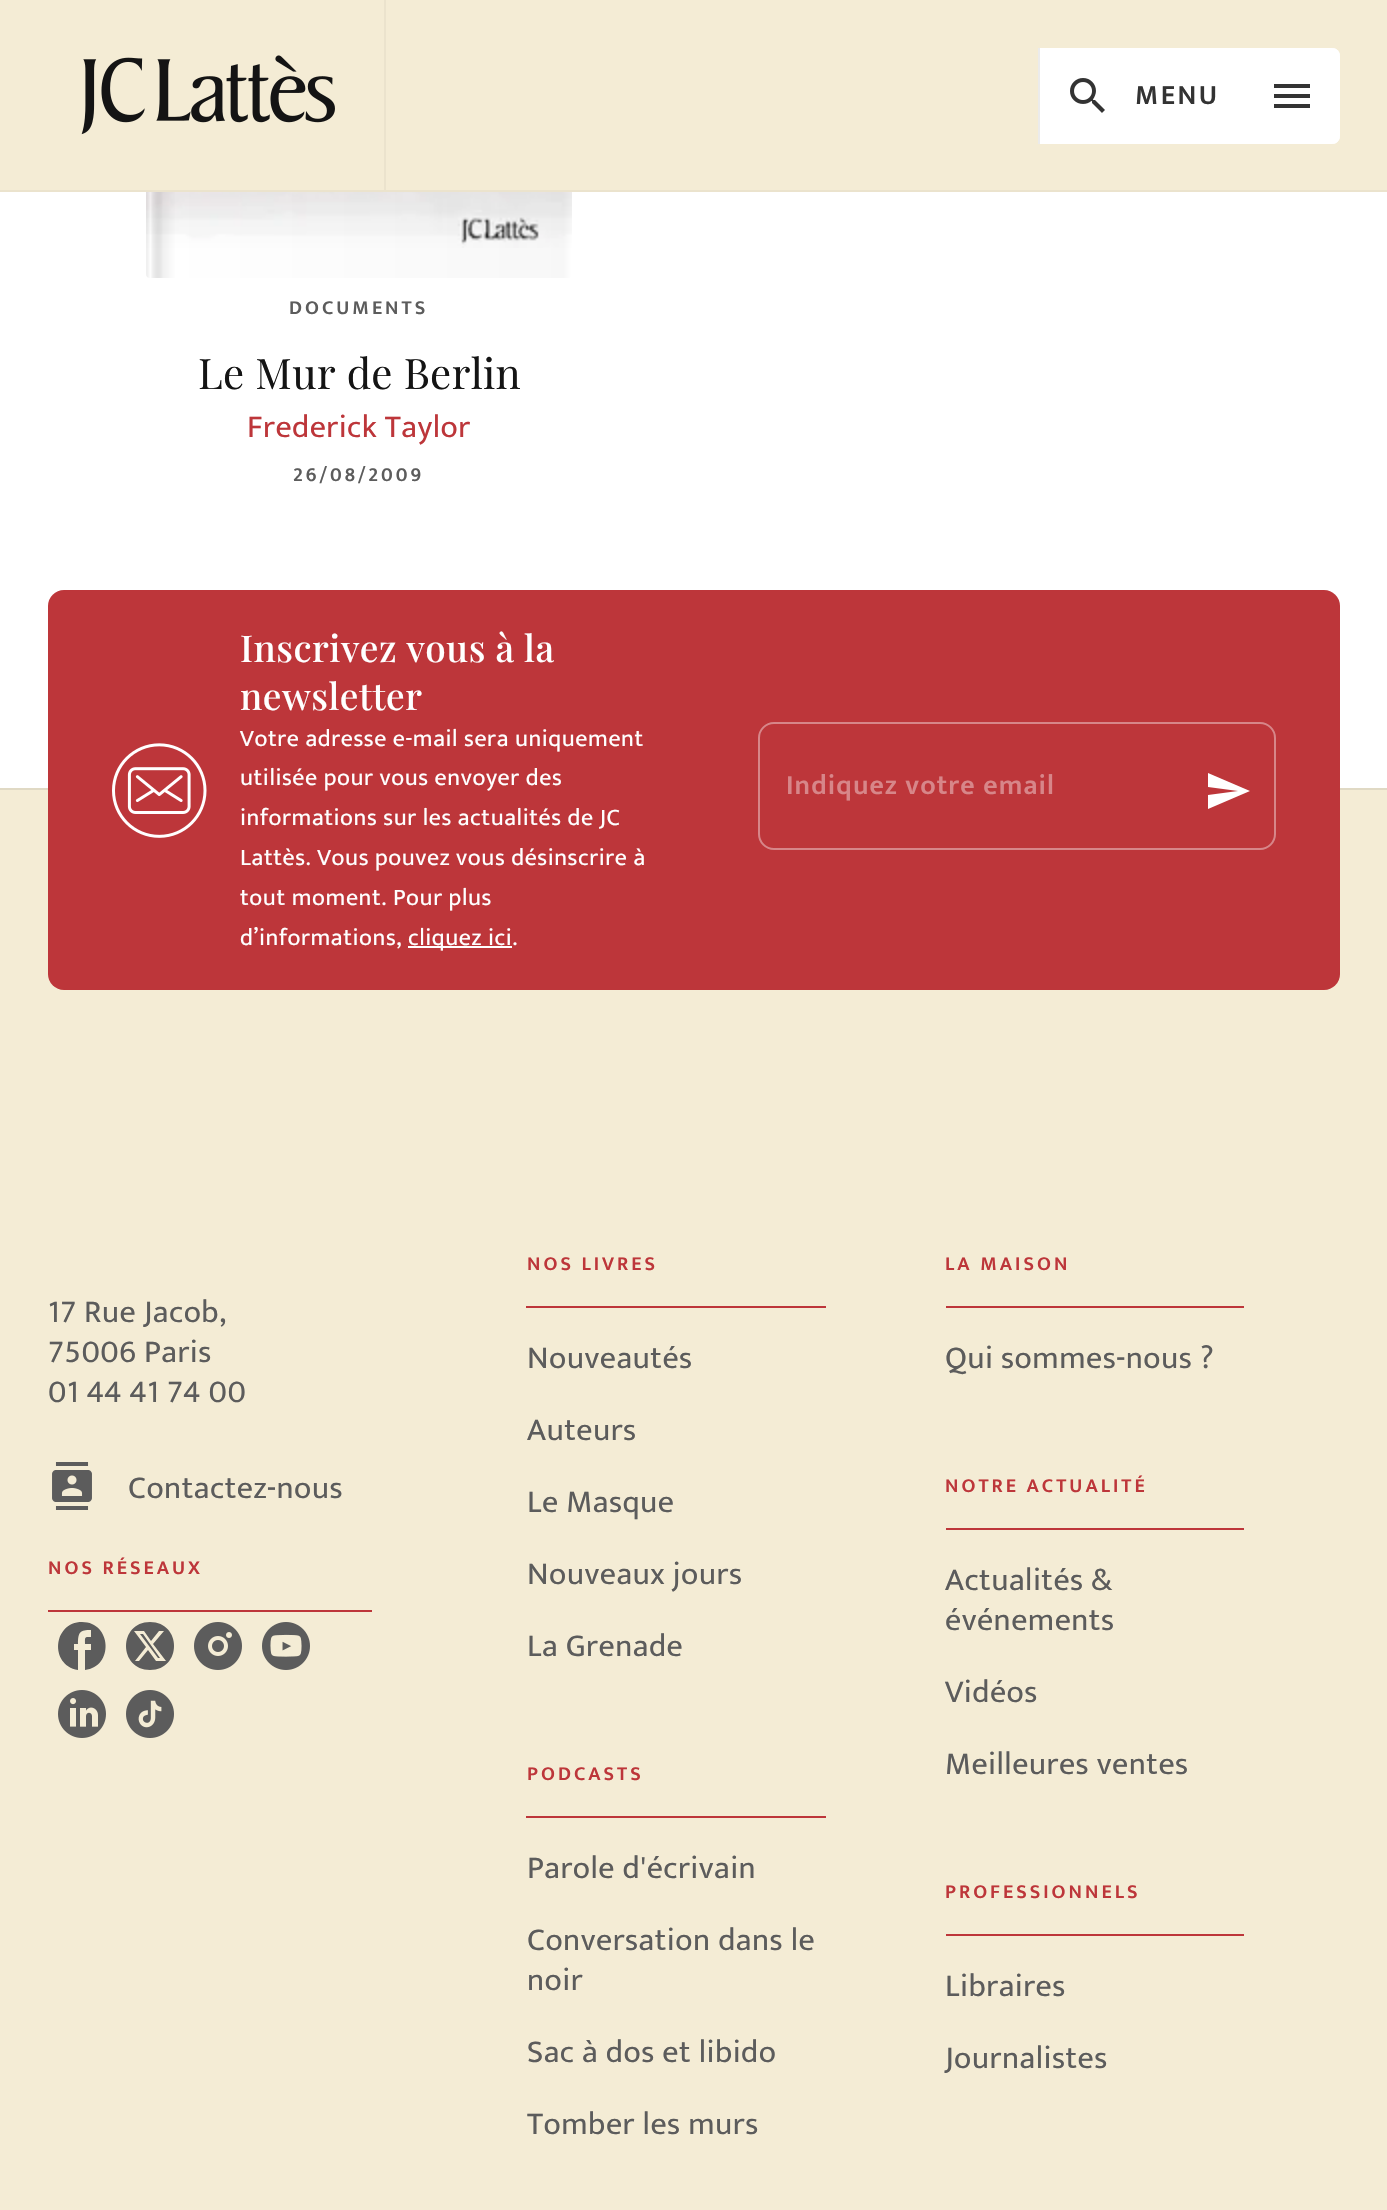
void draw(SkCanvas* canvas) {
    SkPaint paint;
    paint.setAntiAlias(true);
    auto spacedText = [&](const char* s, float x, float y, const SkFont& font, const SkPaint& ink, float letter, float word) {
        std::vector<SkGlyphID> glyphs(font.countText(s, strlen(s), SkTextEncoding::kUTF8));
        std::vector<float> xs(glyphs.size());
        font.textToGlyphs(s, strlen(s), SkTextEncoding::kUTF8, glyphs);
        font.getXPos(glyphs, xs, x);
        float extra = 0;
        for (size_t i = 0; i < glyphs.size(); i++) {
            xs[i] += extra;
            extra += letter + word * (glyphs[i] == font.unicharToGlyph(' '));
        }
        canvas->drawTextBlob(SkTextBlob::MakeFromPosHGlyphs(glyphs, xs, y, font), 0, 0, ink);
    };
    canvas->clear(0xFFFFFFFF);
    canvas->drawImageRect(SkImages::DeferredFromEncodedData(SkData::MakeFromFileName("img3.png")), SkRect::MakeXYWH(146, 192, 426, 56), SkSamplingOptions());
    {
        const SkColor colors[] = {0x4DFFFFFF, 0x2EA9A9A9, 0x5CFFFFFF, 0x0F050505, 0x00050505, 0x007F7F7F, 0x0F7F7F7F, 0x0FFFFFFF};
        const float stops[] = {0, 0, 0.01f, 0.04f, 0.07f, 0.07f, 0.98f, 1};
        const SkPoint ends[] = {{146, -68}, {572, -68}};
        paint.setShader(SkGradientShader::MakeLinear(ends, colors, stops, 8, SkTileMode::kClamp));
        paint.setAlpha(255);
    }
    canvas->drawRoundRect(SkRect::MakeXYWH(146, -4, 426, 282), 4, 4, paint);
    paint.setShader(nullptr);
    paint.setColor(0xFFF4ECD5);
    canvas->drawRect(SkRect::MakeXYWH(0, 0, 1387, 190), paint);
    paint.setColor(0xFFEBE3CD);
    canvas->drawRect(SkRect::MakeXYWH(0, 190, 1387, 2), paint);
    canvas->drawRect(SkRect::MakeXYWH(384, 0, 2, 190), paint);
    canvas->drawImageRect(SkImages::DeferredFromEncodedData(SkData::MakeFromFileName("img1.png")), SkRect::MakeXYWH(81, 55, 254, 80), SkSamplingOptions());
    paint.setColor(0xFFFFFFFF);
    canvas->drawPath(SkPathBuilder().moveTo(1038, 48).lineTo(1332, 48).cubicTo(1336.5f, 48, 1340, 51.5f, 1340, 56).lineTo(1340, 136).cubicTo(1340, 140.5f, 1336.5f, 144, 1332, 144).lineTo(1038, 144).close().detach(), paint);
    paint.setColor(0xFFEBEBEB);
    canvas->drawRect(SkRect::MakeXYWH(1038, 48, 2, 96), paint);
    paint.setColor(0xFFFFFFFF);
    canvas->drawRoundRect(SkRect::MakeXYWH(1040, 48, 300, 96), 8, 8, paint);
    canvas->drawImageRect(SkImages::DeferredFromEncodedData(SkData::MakeFromFileName("img2.png")), SkRect::MakeXYWH(1070, 78, 35, 35), SkSamplingOptions());
    SkFont font1(fontMgr->matchFamilyStyle("Mukta", SkFontStyle(600, SkFontStyle::kNormal_Width, SkFontStyle::kUpright_Slant)), 28);
    font1.setSubpixel(true);
    paint.setColor(0xFF333333);
    spacedText("MENU", 1135, 104, font1, paint, 2.5f, 0);
    canvas->drawPath(SkPathBuilder().moveTo(1274, 84).lineTo(1310, 84).lineTo(1310, 88).lineTo(1274, 88).close().moveTo(1274, 98).lineTo(1274, 94).lineTo(1310, 94).lineTo(1310, 98).close().moveTo(1274, 108).lineTo(1274, 104).lineTo(1310, 104).lineTo(1310, 108).close().detach(), paint);
    SkFont font2(fontMgr->matchFamilyStyle("Mukta", SkFontStyle(600, SkFontStyle::kNormal_Width, SkFontStyle::kUpright_Slant)), 20);
    font2.setSubpixel(true);
    paint.setColor(0xFF5C5C5C);
    spacedText("DOCUMENTS", 289, 314, font2, paint, 3, 0);
    SkFont font3(fontMgr->matchFamilyStyle("Playfair Display", SkFontStyle::Normal()), 42);
    font3.setSubpixel(true);
    paint.setColor(0xFF141414);
    spacedText("Le Mur de Berlin", 198, 389, font3, paint, 0.3f, 0);
    SkFont font4(fontMgr->matchFamilyStyle("Mukta", SkFontStyle::Normal()), 32);
    font4.setSubpixel(true);
    paint.setColor(0xFFBD363A);
    spacedText("Frederick Taylor", 247, 437, font4, paint, 0.5f, 0);
    paint.setColor(0xFF5C5C5C);
    spacedText("26/08/2009", 293, 481, font2, paint, 3, 0);
    paint.setColor(0xFFF4ECD5);
    canvas->drawRect(SkRect::MakeXYWH(0, 790, 1387, 1420), paint);
    paint.setColor(0xFFE0D9C4);
    canvas->drawRect(SkRect::MakeXYWH(0, 788, 1387, 2), paint);
    paint.setColor(0xFFBD363A);
    canvas->drawRoundRect(SkRect::MakeXYWH(48, 590, 1292, 400), 16, 16, paint);
    canvas->drawImageRect(SkImages::DeferredFromEncodedData(SkData::MakeFromFileName("img4.png")), SkRect::MakeXYWH(112, 743, 95, 95), SkSamplingOptions());
    SkFont font5(fontMgr->matchFamilyStyle("Playfair Display", SkFontStyle(500, SkFontStyle::kNormal_Width, SkFontStyle::kUpright_Slant)), 37);
    font5.setSubpixel(true);
    paint.setColor(0xFFFFFFFF);
    spacedText("Inscrivez vous à la", 240, 662, font5, paint, 0.5f, 0);
    spacedText("newsletter", 240, 710, font5, paint, 0.5f, 0);
    SkFont font6(fontMgr->matchFamilyStyle("Mukta", SkFontStyle::Normal()), 24);
    font6.setSubpixel(true);
    spacedText("Votre adresse e-mail sera uniquement", 240, 746, font6, paint, 0.6f, 0);
    spacedText("utilisée pour vous envoyer des", 240, 785, font6, paint, 0.6f, 0);
    spacedText("informations sur les actualités de JC", 240, 825, font6, paint, 0.6f, 0);
    spacedText("Lattès. Vous pouvez vous désinscrire à", 240, 865, font6, paint, 0.6f, 0);
    spacedText("tout moment. Pour plus", 240, 905, font6, paint, 0.6f, 0);
    spacedText("d’informations,", 240, 945, font6, paint, 0.6f, 0);
    canvas->drawRect(SkRect::MakeXYWH(408, 946, 104, 2), paint);
    spacedText("cliquez ici.", 408, 945, font6, paint, 0.6f, 0);
    paint.setStyle(SkPaint::kStroke_Style);
    paint.setStrokeWidth(2);
    paint.setColor(0xFFD78689);
    canvas->drawRoundRect(SkRect::MakeXYWH(759, 723, 516, 126), 15, 15, paint);
    paint.setStyle(SkPaint::kFill_Style);
    spacedText("Indiquez votre email", 786, 794, font1, paint, 1.1f, 0);
    paint.setColor(0xFFFFFFFF);
    canvas->drawPath(SkPathBuilder().moveTo(1208, 809).lineTo(1208, 795).lineTo(1238, 791).lineTo(1208, 787).lineTo(1208, 773).lineTo(1250, 791).close().detach(), paint);
    paint.setColor(0xFF5C5C5C);
    spacedText("17 Rue Jacob,", 48, 1322, font4, paint, 0.5f, 0);
    spacedText("75006 Paris", 48, 1362, font4, paint, 0.5f, 0);
    spacedText("01 44 41 74 00", 48, 1402, font4, paint, 0.5f, 0);
    canvas->drawImageRect(SkImages::DeferredFromEncodedData(SkData::MakeFromFileName("img5.png")), SkRect::MakeXYWH(52, 1462, 40, 48), SkSamplingOptions());
    spacedText("Contactez-nous", 128, 1498, font4, paint, 0.5f, 0);
    paint.setColor(0xFFBD363A);
    canvas->drawRect(SkRect::MakeXYWH(48, 1610, 324, 2), paint);
    spacedText("NOS RÉSEAUX", 48, 1574, font2, paint, 3, 0);
    paint.setColor(0xFF5C5C5C);
    canvas->drawPath(SkPathBuilder().moveTo(82, 1622).cubicTo(112, 1622, 114, 1667, 85, 1670).lineTo(85, 1650).lineTo(91, 1650).lineTo(91, 1644).lineTo(85, 1644).cubicTo(85, 1637, 84, 1637, 91, 1637).lineTo(91, 1630).cubicTo(80, 1630, 78, 1632, 78, 1644).lineTo(74, 1644).lineTo(74, 1650).lineTo(78, 1650).lineTo(78, 1670).cubicTo(49, 1665, 53, 1622, 82, 1622).close().detach(), paint);
    canvas->drawPath(SkPathBuilder().moveTo(150, 1622).cubicTo(118, 1622, 118, 1670, 150, 1670).cubicTo(182, 1670, 182, 1622, 150, 1622).close().moveTo(134, 1631).lineTo(144, 1631).lineTo(151, 1641).lineTo(159, 1631).lineTo(164, 1631).lineTo(153, 1644).lineTo(166, 1661).lineTo(156, 1661).lineTo(148, 1650).lineTo(139, 1661).lineTo(135, 1661).lineTo(146, 1647).close().moveTo(140, 1634).lineTo(158, 1658).lineTo(160, 1658).lineTo(143, 1634).close().detach(), paint);
    canvas->drawImageRect(SkImages::DeferredFromEncodedData(SkData::MakeFromFileName("img6.png")), SkRect::MakeXYWH(194, 1622, 48, 48), SkSamplingOptions());
    canvas->drawImageRect(SkImages::DeferredFromEncodedData(SkData::MakeFromFileName("img7.png")), SkRect::MakeXYWH(262, 1622, 48, 48), SkSamplingOptions());
    canvas->drawImageRect(SkImages::DeferredFromEncodedData(SkData::MakeFromFileName("img8.png")), SkRect::MakeXYWH(58, 1690, 48, 48), SkSamplingOptions());
    canvas->drawImageRect(SkImages::DeferredFromEncodedData(SkData::MakeFromFileName("img9.png")), SkRect::MakeXYWH(126, 1690, 48, 48), SkSamplingOptions());
    paint.setColor(0xFFBD363A);
    canvas->drawRect(SkRect::MakeXYWH(526, 1306, 300, 2), paint);
    spacedText("NOS LIVRES", 527, 1270, font2, paint, 3, 0);
    paint.setColor(0xFF5C5C5C);
    spacedText("Nouveautés", 527, 1368, font4, paint, 0.5f, 0);
    spacedText("Auteurs", 527, 1440, font4, paint, 0.5f, 0);
    spacedText("Le Masque", 527, 1512, font4, paint, 0.5f, 0);
    spacedText("Nouveaux jours", 527, 1584, font4, paint, 0.5f, 0);
    spacedText("La Grenade", 527, 1656, font4, paint, 0.5f, 0);
    paint.setColor(0xFFBD363A);
    canvas->drawRect(SkRect::MakeXYWH(526, 1816, 300, 2), paint);
    spacedText("PODCASTS", 527, 1780, font2, paint, 3, 0);
    paint.setColor(0xFF5C5C5C);
    spacedText("Parole d'écrivain", 527, 1878, font4, paint, 0.5f, 0);
    spacedText("Conversation dans le", 527, 1950, font4, paint, 0.5f, 0);
    spacedText("noir", 527, 1990, font4, paint, 0.5f, 0);
    spacedText("Sac à dos et libido", 527, 2062, font4, paint, 0.5f, 0);
    spacedText("Tomber les murs", 527, 2134, font4, paint, 0.5f, 0);
    paint.setColor(0xFFBD363A);
    canvas->drawRect(SkRect::MakeXYWH(946, 1306, 298, 2), paint);
    spacedText("LA MAISON", 945, 1270, font2, paint, 3, 0);
    paint.setColor(0xFF5C5C5C);
    spacedText("Qui sommes-nous ?", 945, 1368, font4, paint, 0.5f, 0);
    paint.setColor(0xFFBD363A);
    canvas->drawRect(SkRect::MakeXYWH(946, 1528, 298, 2), paint);
    spacedText("NOTRE ACTUALITÉ", 945, 1492, font2, paint, 3, 0);
    paint.setColor(0xFF5C5C5C);
    spacedText("Actualités &", 945, 1590, font4, paint, 0.5f, 0);
    spacedText("événements", 945, 1630, font4, paint, 0.5f, 0);
    spacedText("Vidéos", 945, 1702, font4, paint, 0.5f, 0);
    spacedText("Meilleures ventes", 945, 1774, font4, paint, 0.5f, 0);
    paint.setColor(0xFFBD363A);
    canvas->drawRect(SkRect::MakeXYWH(946, 1934, 298, 2), paint);
    spacedText("PROFESSIONNELS", 945, 1898, font2, paint, 3, 0);
    paint.setColor(0xFF5C5C5C);
    spacedText("Libraires", 945, 1996, font4, paint, 0.5f, 0);
    spacedText("Journalistes", 945, 2068, font4, paint, 0.5f, 0);
}
